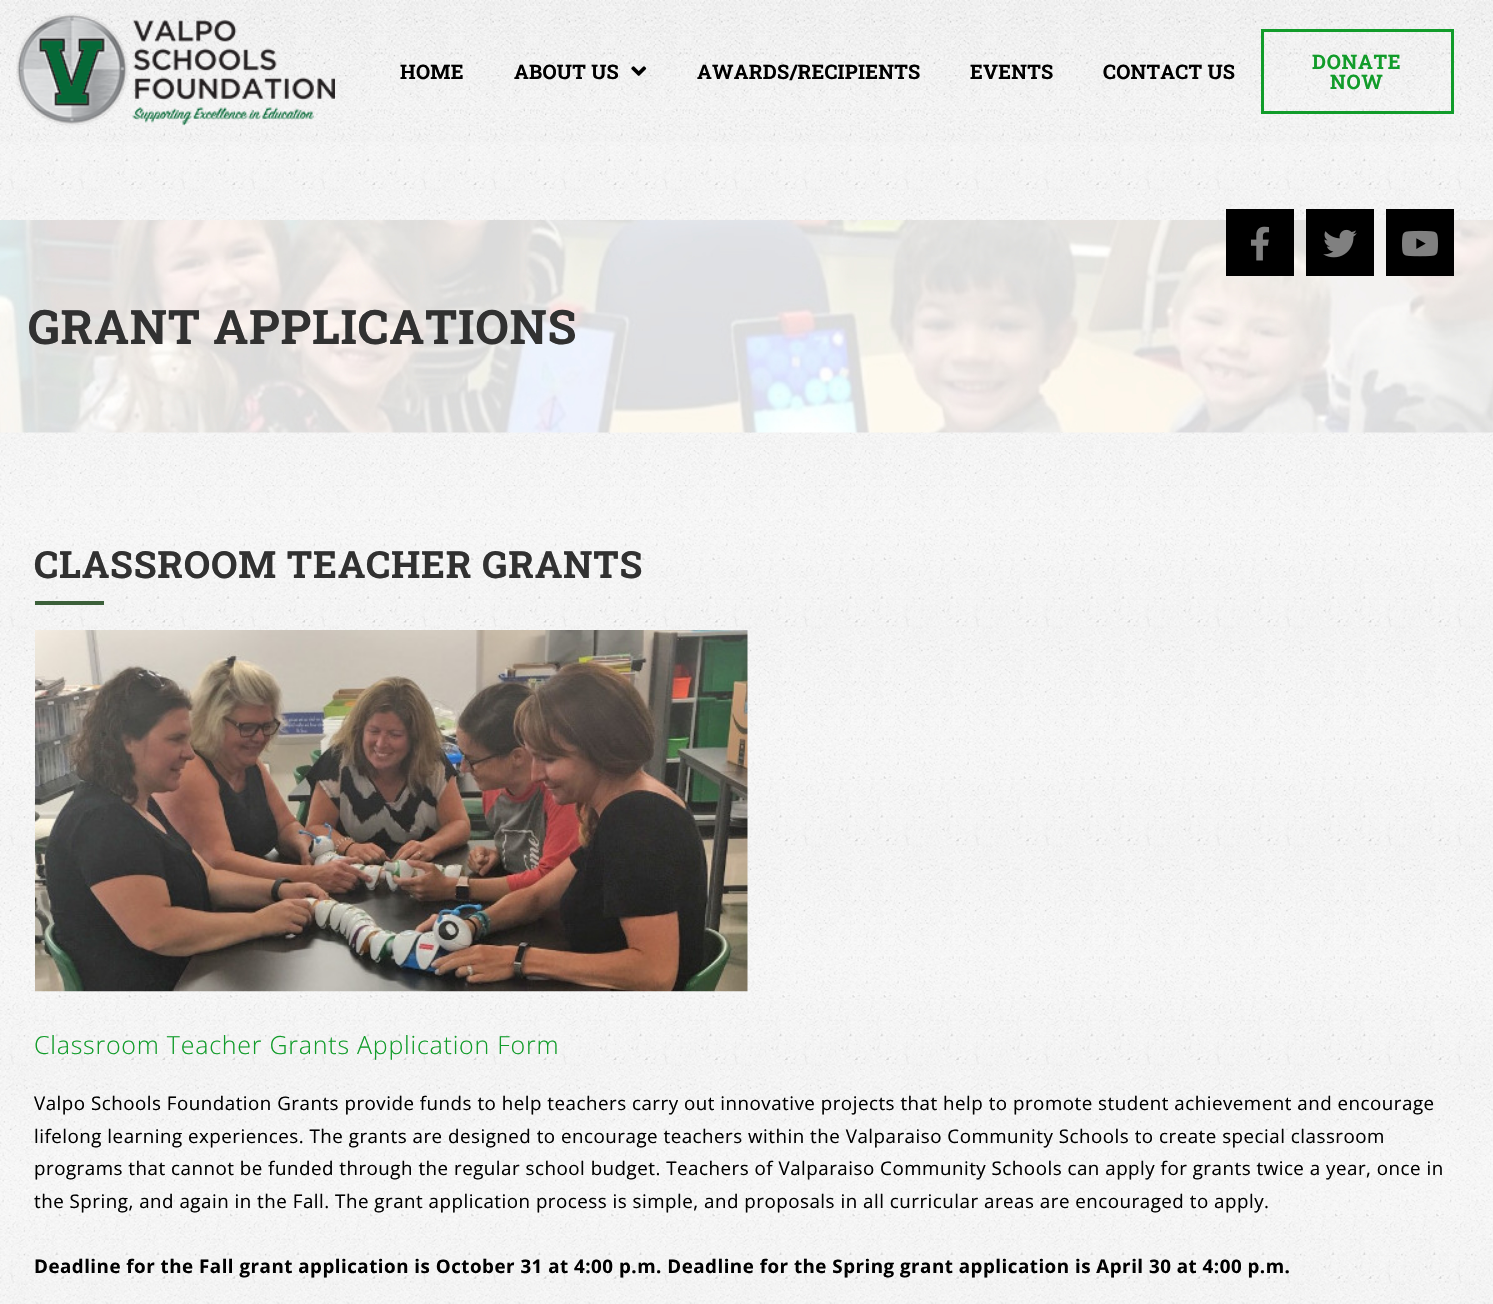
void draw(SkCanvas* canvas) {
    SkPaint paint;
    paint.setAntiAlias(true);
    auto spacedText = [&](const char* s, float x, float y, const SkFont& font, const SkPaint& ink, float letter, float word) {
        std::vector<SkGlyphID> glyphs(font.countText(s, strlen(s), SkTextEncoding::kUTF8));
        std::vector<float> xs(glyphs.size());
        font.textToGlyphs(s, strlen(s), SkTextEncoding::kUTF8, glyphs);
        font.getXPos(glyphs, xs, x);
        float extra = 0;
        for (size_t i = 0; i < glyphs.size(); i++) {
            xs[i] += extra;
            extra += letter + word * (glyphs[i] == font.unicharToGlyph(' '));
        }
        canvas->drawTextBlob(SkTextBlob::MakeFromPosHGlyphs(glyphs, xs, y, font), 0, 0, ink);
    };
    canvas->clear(0xFFFFFFFF);
    canvas->drawImageRect(SkImages::DeferredFromEncodedData(SkData::MakeFromFileName("img1.png")), SkRect::MakeXYWH(0, 142, 1493, 1162), SkSamplingOptions());
    canvas->drawImageRect(SkImages::DeferredFromEncodedData(SkData::MakeFromFileName("img2.png")), SkRect::MakeXYWH(0, 0, 1493, 143), SkSamplingOptions());
    canvas->drawImageRect(SkImages::DeferredFromEncodedData(SkData::MakeFromFileName("img3.png")), SkRect::MakeXYWH(16, 13, 319, 113), SkSamplingOptions());
    SkFont font1(fontMgr->matchFamilyStyle("Roboto Slab", SkFontStyle::Bold()), 20);
    font1.setSubpixel(true);
    paint.setColor(0xFF000000);
    spacedText("HOME", 400, 79, font1, paint, 0.25f, 0);
    spacedText("ABOUT US", 514, 79, font1, paint, 0.25f, 0);
    canvas->drawImageRect(SkImages::DeferredFromEncodedData(SkData::MakeFromFileName("img4.png")), SkRect::MakeXYWH(631, 66, 16, 10), SkSamplingOptions());
    spacedText("AWARDS/RECIPIENTS", 697, 79, font1, paint, 0.25f, 0);
    spacedText("EVENTS", 970, 79, font1, paint, 0.25f, 0);
    spacedText("CONTACT US", 1103, 79, font1, paint, 0.25f, 0);
    paint.setStyle(SkPaint::kStroke_Style);
    paint.setStrokeWidth(3);
    paint.setColor(0xFF119C2A);
    canvas->drawRect(SkRect::MakeXYWH(1262.5f, 30.5f, 190, 82), paint);
    paint.setStyle(SkPaint::kFill_Style);
    spacedText("DONATE", 1312, 69, font1, paint, 0.75f, 0);
    spacedText("NOW", 1330, 89, font1, paint, 0.75f, 0);
    canvas->drawImageRect(SkImages::DeferredFromEncodedData(SkData::MakeFromFileName("img8.png")), SkRect::MakeXYWH(0, 220, 1493, 213), SkSamplingOptions());
    paint.setColor(0xFF000000);
    canvas->drawRect(SkRect::MakeXYWH(1226, 209, 68, 67), paint);
    canvas->drawImageRect(SkImages::DeferredFromEncodedData(SkData::MakeFromFileName("img5.png")), SkRect::MakeXYWH(1250, 226, 20, 35), SkSamplingOptions());
    canvas->drawRect(SkRect::MakeXYWH(1306, 209, 68, 67), paint);
    canvas->drawImageRect(SkImages::DeferredFromEncodedData(SkData::MakeFromFileName("img6.png")), SkRect::MakeXYWH(1323, 229, 34, 29), SkSamplingOptions());
    canvas->drawRect(SkRect::MakeXYWH(1386, 209, 68, 67), paint);
    canvas->drawImageRect(SkImages::DeferredFromEncodedData(SkData::MakeFromFileName("img7.png")), SkRect::MakeXYWH(1402, 230, 36, 27), SkSamplingOptions());
    SkFont font2(fontMgr->matchFamilyStyle("Roboto Slab", SkFontStyle::Bold()), 47.5f);
    font2.setSubpixel(true);
    paint.setColor(0xFF313131);
    spacedText("GRANT APPLICATIONS", 28, 344, font2, paint, 0.75f, 0);
    SkFont font3(fontMgr->matchFamilyStyle("Roboto Slab", SkFontStyle::Bold()), 37.5f);
    font3.setSubpixel(true);
    spacedText("CLASSROOM TEACHER GRANTS", 34, 578, font3, paint, 0.75f, 0);
    paint.setColor(0xFF3C603A);
    canvas->drawRect(SkRect::MakeXYWH(35, 601, 69, 4), paint);
    canvas->drawImageRect(SkImages::DeferredFromEncodedData(SkData::MakeFromFileName("img9.png")), SkRect::MakeXYWH(35, 630, 713, 362), SkSamplingOptions());
    SkFont font4(fontMgr->matchFamilyStyle("Open Sans", SkFontStyle(300, SkFontStyle::kNormal_Width, SkFontStyle::kUpright_Slant)), 25);
    font4.setSubpixel(true);
    paint.setColor(0xFF119C2A);
    spacedText("Classroom Teacher Grants Application Form", 34, 1054, font4, paint, 0.75f, 0);
    SkFont font5(fontMgr->matchFamilyStyle("Open Sans", SkFontStyle::Normal()), 18.75f);
    font5.setSubpixel(true);
    paint.setColor(0xFF000000);
    spacedText("Valpo Schools Foundation Grants provide funds to help teachers carry out innovative projects that help to promote student achievement and encourage", 34, 1110, font5, paint, 0.5f, 0);
    spacedText("lifelong learning experiences. The grants are designed to encourage teachers within the Valparaiso Community Schools to create special classroom", 34, 1143, font5, paint, 0.5f, 0);
    spacedText("programs that cannot be funded through the regular school budget. Teachers of Valparaiso Community Schools can apply for grants twice a year, once in", 34, 1175, font5, paint, 0.5f, 0);
    spacedText("the Spring, and again in the Fall. The grant application process is simple, and proposals in all curricular areas are encouraged to apply.", 34, 1208, font5, paint, 0.5f, 0);
    SkFont font6(fontMgr->matchFamilyStyle("Open Sans", SkFontStyle::Bold()), 18.75f);
    font6.setSubpixel(true);
    spacedText("Deadline for the Fall grant application is October 31 at 4:00 p.m. Deadline for the Spring grant application is April 30 at 4:00 p.m.", 34, 1273, font6, paint, 0.5f, 0);
}
